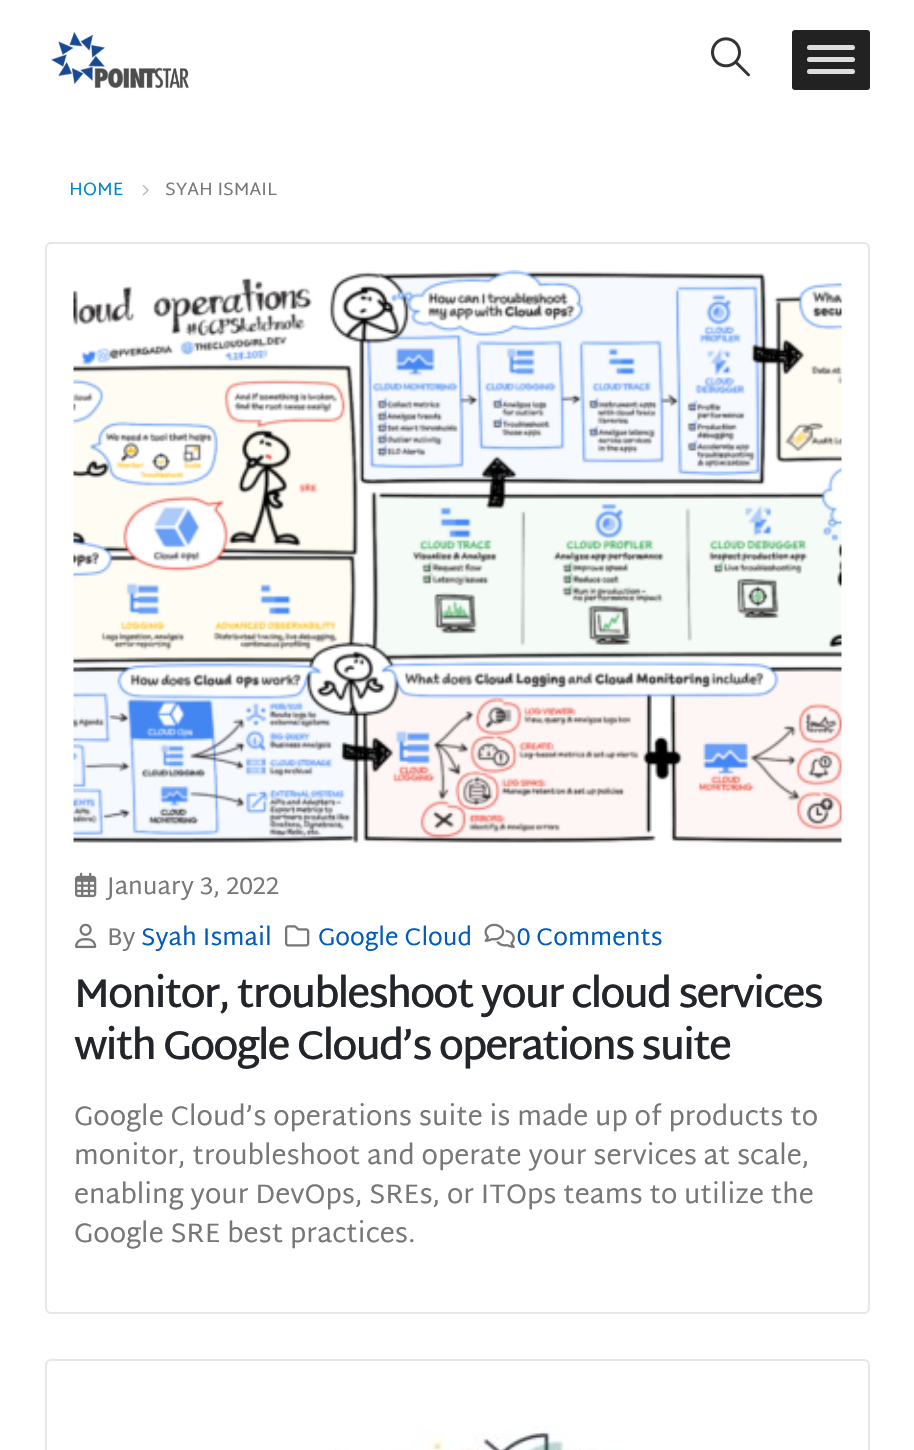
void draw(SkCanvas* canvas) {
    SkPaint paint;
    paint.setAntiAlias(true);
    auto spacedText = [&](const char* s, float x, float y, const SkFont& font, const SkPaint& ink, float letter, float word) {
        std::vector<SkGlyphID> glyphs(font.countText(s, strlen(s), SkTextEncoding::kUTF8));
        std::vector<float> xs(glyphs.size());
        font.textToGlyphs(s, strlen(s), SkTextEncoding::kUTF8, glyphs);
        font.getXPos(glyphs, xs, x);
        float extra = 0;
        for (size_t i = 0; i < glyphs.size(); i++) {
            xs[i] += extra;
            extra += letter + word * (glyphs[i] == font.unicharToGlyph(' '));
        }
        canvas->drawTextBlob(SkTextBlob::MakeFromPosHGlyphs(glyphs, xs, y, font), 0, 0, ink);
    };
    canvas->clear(0xFFFFFFFF);
    canvas->drawImageRect(SkImages::DeferredFromEncodedData(SkData::MakeFromFileName("img1.png")), SkRect::MakeXYWH(51, 31, 138, 58), SkSamplingOptions());
    canvas->drawImageRect(SkImages::DeferredFromEncodedData(SkData::MakeFromFileName("img2.png")), SkRect::MakeXYWH(711, 37, 39, 40), SkSamplingOptions());
    paint.setColor(0xFF222222);
    canvas->drawRoundRect(SkRect::MakeXYWH(792, 30, 78, 60), 3, 3, paint);
    paint.setColor(0xFFDDDDDD);
    canvas->drawRoundRect(SkRect::MakeXYWH(807, 45, 48, 5), 2.5f, 2.5f, paint);
    canvas->drawRoundRect(SkRect::MakeXYWH(807, 57, 48, 5), 2.5f, 2.5f, paint);
    canvas->drawRoundRect(SkRect::MakeXYWH(807, 69, 48, 5), 2.5f, 2.5f, paint);
    SkFont font1(fontMgr->matchFamilyStyle("Martel Sans", SkFontStyle::Normal()), 18);
    font1.setSubpixel(true);
    paint.setColor(0xFF0088CC);
    canvas->drawString("HOME", 69, 195, font1, paint);
    canvas->drawImageRect(SkImages::DeferredFromEncodedData(SkData::MakeFromFileName("img3.png")), SkRect::MakeXYWH(142, 185, 7, 11), SkSamplingOptions());
    paint.setColor(0xFF777777);
    canvas->drawString("SYAH ISMAIL", 165, 195, font1, paint);
    paint.setStyle(SkPaint::kStroke_Style);
    paint.setStrokeWidth(2);
    paint.setColor(0xFFE7E7E7);
    canvas->drawRoundRect(SkRect::MakeXYWH(46, 243, 823, 1070), 5, 5, paint);
    canvas->drawImageRect(SkImages::DeferredFromEncodedData(SkData::MakeFromFileName("img4.png")), SkRect::MakeXYWH(73, 270, 769, 574), SkSamplingOptions());
    canvas->drawImageRect(SkImages::DeferredFromEncodedData(SkData::MakeFromFileName("img5.png")), SkRect::MakeXYWH(75, 872, 22, 26), SkSamplingOptions());
    SkFont font2(fontMgr->matchFamilyStyle("Martel Sans", SkFontStyle::Normal()), 24.25f);
    font2.setSubpixel(true);
    paint.setStyle(SkPaint::kFill_Style);
    paint.setColor(0xFF777777);
    canvas->drawString("January 3, 2022", 107, 894, font2, paint);
    canvas->drawImageRect(SkImages::DeferredFromEncodedData(SkData::MakeFromFileName("img6.png")), SkRect::MakeXYWH(75, 923, 22, 26), SkSamplingOptions());
    canvas->drawString("By", 107, 945, font2, paint);
    paint.setColor(0xFF005BBB);
    canvas->drawString("Syah Ismail", 141, 945, font2, paint);
    canvas->drawImageRect(SkImages::DeferredFromEncodedData(SkData::MakeFromFileName("img7.png")), SkRect::MakeXYWH(285, 925, 25, 22), SkSamplingOptions());
    canvas->drawString("Google Cloud", 318, 945, font2, paint);
    canvas->drawImageRect(SkImages::DeferredFromEncodedData(SkData::MakeFromFileName("img8.png")), SkRect::MakeXYWH(484, 923, 31, 25), SkSamplingOptions());
    canvas->drawString("0 Comments", 517, 945, font2, paint);
    SkFont font3(fontMgr->matchFamilyStyle("Martel Sans", SkFontStyle(600, SkFontStyle::kNormal_Width, SkFontStyle::kUpright_Slant)), 40.5f);
    font3.setSubpixel(true);
    paint.setColor(0xFF222529);
    spacedText("Monitor, troubleshoot your cloud services", 74, 1007, font3, paint, -2.05f, 0);
    spacedText("with Google Cloud’s operations suite", 74, 1059, font3, paint, -2.05f, 0);
    SkFont font4(fontMgr->matchFamilyStyle("Martel Sans", SkFontStyle::Normal()), 27);
    font4.setSubpixel(true);
    paint.setColor(0xFF777777);
    canvas->drawString("Google Cloud’s operations suite is made up of products to", 74, 1125, font4, paint);
    canvas->drawString("monitor, troubleshoot and operate your services at scale,", 74, 1164, font4, paint);
    canvas->drawString("enabling your DevOps, SREs, or ITOps teams to utilize the", 74, 1203, font4, paint);
    canvas->drawString("Google SRE best practices.", 74, 1242, font4, paint);
    paint.setStyle(SkPaint::kStroke_Style);
    paint.setColor(0xFFE7E7E7);
    canvas->drawRoundRect(SkRect::MakeXYWH(46, 1360, 823, 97), 5, 5, paint);
    canvas->drawImageRect(SkImages::DeferredFromEncodedData(SkData::MakeFromFileName("img9.png")), SkRect::MakeXYWH(335, 1426, 290, 24), SkSamplingOptions());
}
